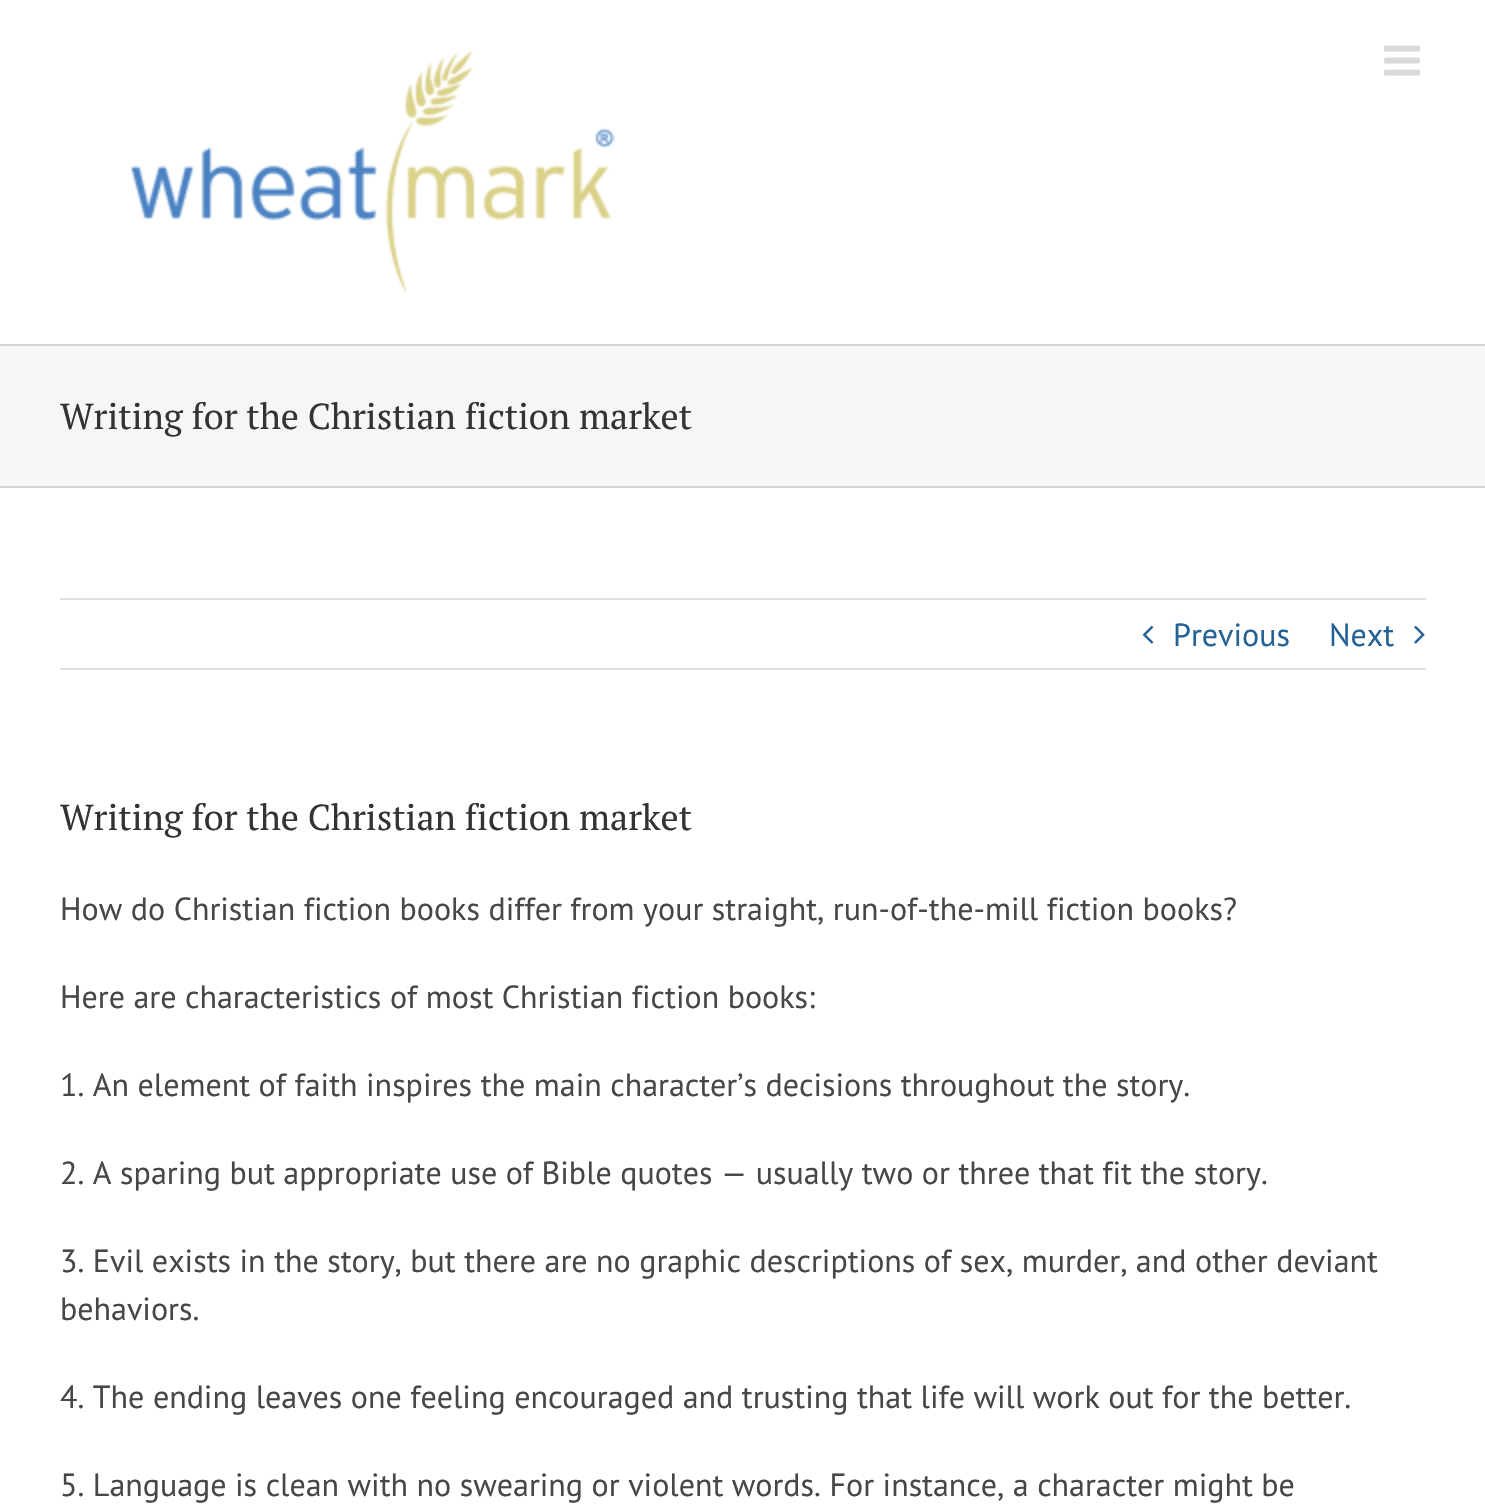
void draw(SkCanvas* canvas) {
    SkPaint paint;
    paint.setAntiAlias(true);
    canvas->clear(0xFFFFFFFF);
    canvas->drawImageRect(SkImages::DeferredFromEncodedData(SkData::MakeFromFileName("img1.png")), SkRect::MakeXYWH(130, 50, 485, 244), SkSamplingOptions());
    canvas->drawImageRect(SkImages::DeferredFromEncodedData(SkData::MakeFromFileName("img2.png")), SkRect::MakeXYWH(1384, 45, 36, 31), SkSamplingOptions());
    paint.setColor(0xFFF6F6F6);
    canvas->drawRect(SkRect::MakeXYWH(0, 346, 1485, 140), paint);
    paint.setColor(0xFFD2D3D4);
    canvas->drawRect(SkRect::MakeXYWH(0, 344, 1485, 2), paint);
    canvas->drawRect(SkRect::MakeXYWH(0, 486, 1485, 2), paint);
    SkFont font1(fontMgr->matchFamilyStyle("PT Serif", SkFontStyle::Normal()), 36);
    font1.setSubpixel(true);
    paint.setColor(0xFF333333);
    canvas->drawString("Writing for the Christian fiction market", 60, 429, font1, paint);
    paint.setColor(0xFFE0DEDE);
    canvas->drawRect(SkRect::MakeXYWH(60, 598, 1366, 2), paint);
    canvas->drawRect(SkRect::MakeXYWH(60, 668, 1366, 2), paint);
    canvas->drawImageRect(SkImages::DeferredFromEncodedData(SkData::MakeFromFileName("img3.png")), SkRect::MakeXYWH(1142, 625, 12, 19), SkSamplingOptions());
    SkFont font2(fontMgr->matchFamilyStyle("PT Sans", SkFontStyle::Normal()), 32);
    font2.setSubpixel(true);
    paint.setColor(0xFF246194);
    canvas->drawString("Previous", 1173, 646, font2, paint);
    canvas->drawString("Next", 1329, 646, font2, paint);
    canvas->drawImageRect(SkImages::DeferredFromEncodedData(SkData::MakeFromFileName("img4.png")), SkRect::MakeXYWH(1414, 625, 11, 19), SkSamplingOptions());
    paint.setColor(0xFF333333);
    canvas->drawString("Writing for the Christian fiction market", 60, 830, font1, paint);
    paint.setColor(0xFF474747);
    canvas->drawString("How do Christian fiction books differ from your straight, run-of-the-mill fiction books?", 60, 920, font2, paint);
    canvas->drawString("Here are characteristics of most Christian fiction books:", 60, 1008, font2, paint);
    canvas->drawString("1. An element of faith inspires the main character’s decisions throughout the story.", 60, 1096, font2, paint);
    canvas->drawString("2. A sparing but appropriate use of Bible quotes — usually two or three that fit the story.", 60, 1184, font2, paint);
    canvas->drawString("3. Evil exists in the story, but there are no graphic descriptions of sex, murder, and other deviant", 60, 1272, font2, paint);
    canvas->drawString("behaviors.", 60, 1320, font2, paint);
    canvas->drawString("4. The ending leaves one feeling encouraged and trusting that life will work out for the better.", 60, 1408, font2, paint);
    canvas->drawString("5. Language is clean with no swearing or violent words. For instance, a character might be", 60, 1496, font2, paint);
}
